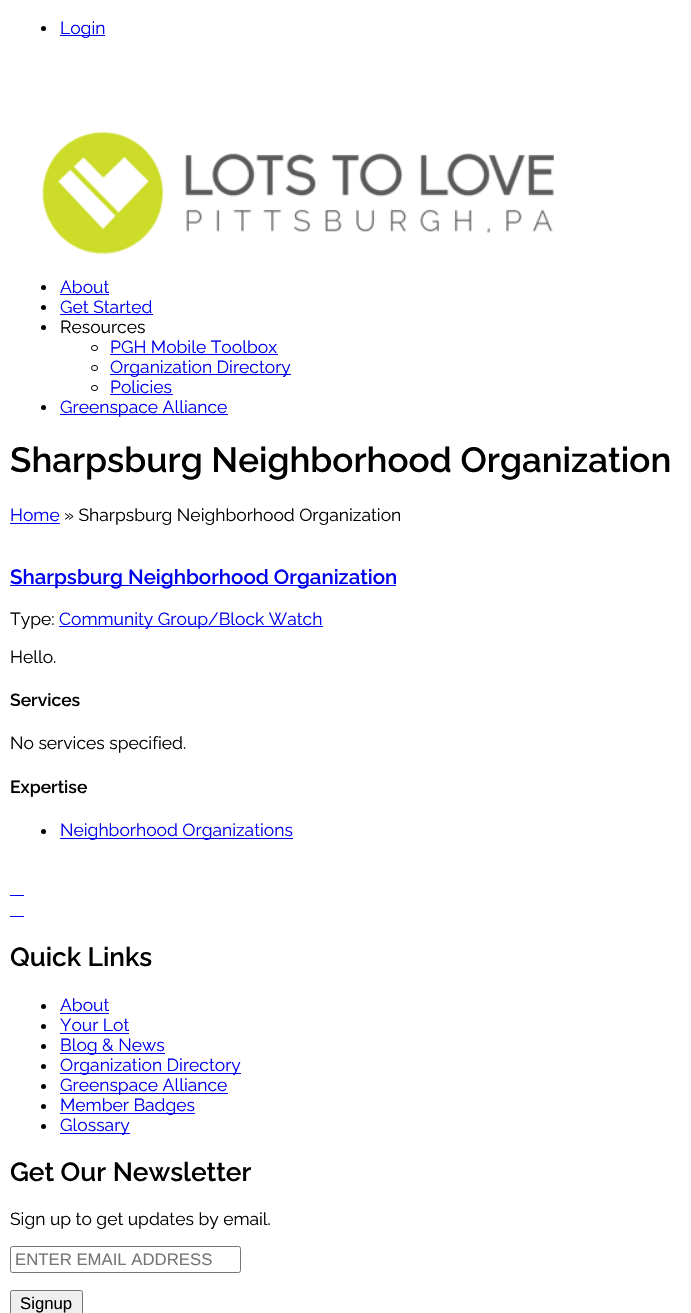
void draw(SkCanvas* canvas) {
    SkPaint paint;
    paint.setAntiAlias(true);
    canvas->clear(0xFFFFFFFF);
    paint.setColor(0xFF000000);
    canvas->drawCircle(43.5f, 28.5f, 2.5f, paint);
    paint.setColor(0xFF0000EE);
    canvas->drawRect(SkRect::MakeXYWH(60, 35, 45, 1), paint);
    SkFont font1(fontMgr->matchFamilyStyle("Raleway", SkFontStyle::Normal()), 17.5f);
    font1.setSubpixel(true);
    canvas->drawString("Login", 60, 34, font1, paint);
    canvas->drawImageRect(SkImages::DeferredFromEncodedData(SkData::MakeFromFileName("img1.png")), SkRect::MakeXYWH(42, 132, 512, 122), SkSamplingOptions());
    paint.setColor(0xFF000000);
    canvas->drawCircle(43.5f, 287.5f, 2.5f, paint);
    paint.setColor(0xFF0000EE);
    canvas->drawString("About", 60, 293, font1, paint);
    canvas->drawRect(SkRect::MakeXYWH(60, 294, 49, 1), paint);
    paint.setColor(0xFF000000);
    canvas->drawCircle(43.5f, 307.5f, 2.5f, paint);
    paint.setColor(0xFF0000EE);
    canvas->drawString("Get Started", 60, 313, font1, paint);
    canvas->drawRect(SkRect::MakeXYWH(60, 314, 93, 1), paint);
    paint.setColor(0xFF000000);
    canvas->drawCircle(43.5f, 327.5f, 2.5f, paint);
    canvas->drawString("Resources", 60, 333, font1, paint);
    paint.setStyle(SkPaint::kStroke_Style);
    paint.setStrokeWidth(1);
    canvas->drawRoundRect(SkRect::MakeXYWH(91.5f, 345.5f, 6, 5), 2.5f, 2.5f, paint);
    paint.setStyle(SkPaint::kFill_Style);
    paint.setColor(0xFF0000EE);
    canvas->drawString("PGH Mobile Toolbox", 110, 353, font1, paint);
    canvas->drawRect(SkRect::MakeXYWH(110, 354, 168, 1), paint);
    paint.setStyle(SkPaint::kStroke_Style);
    paint.setColor(0xFF000000);
    canvas->drawRoundRect(SkRect::MakeXYWH(91.5f, 365.5f, 6, 5), 2.5f, 2.5f, paint);
    paint.setStyle(SkPaint::kFill_Style);
    paint.setColor(0xFF0000EE);
    canvas->drawRect(SkRect::MakeXYWH(110, 374, 181, 1), paint);
    canvas->drawString("Organization Directory", 110, 373, font1, paint);
    paint.setStyle(SkPaint::kStroke_Style);
    paint.setColor(0xFF000000);
    canvas->drawRoundRect(SkRect::MakeXYWH(91.5f, 385.5f, 6, 5), 2.5f, 2.5f, paint);
    paint.setStyle(SkPaint::kFill_Style);
    paint.setColor(0xFF0000EE);
    canvas->drawString("Policies", 110, 393, font1, paint);
    canvas->drawRect(SkRect::MakeXYWH(110, 394, 63, 1), paint);
    paint.setColor(0xFF000000);
    canvas->drawCircle(43.5f, 407.5f, 2.5f, paint);
    paint.setColor(0xFF0000EE);
    canvas->drawRect(SkRect::MakeXYWH(60, 414, 168, 1), paint);
    canvas->drawString("Greenspace Alliance", 60, 413, font1, paint);
    SkFont font2(fontMgr->matchFamilyStyle("Raleway", SkFontStyle(600, SkFontStyle::kNormal_Width, SkFontStyle::kUpright_Slant)), 35);
    font2.setSubpixel(true);
    paint.setColor(0xFF000000);
    canvas->drawString("Sharpsburg Neighborhood Organization", 10, 472, font2, paint);
    paint.setColor(0xFF0000EE);
    canvas->drawString("Home", 10, 521, font1, paint);
    canvas->drawRect(SkRect::MakeXYWH(10, 523, 50, 1), paint);
    paint.setColor(0xFF000000);
    canvas->drawString("» Sharpsburg Neighborhood Organization", 64, 521, font1, paint);
    paint.setColor(0xFF0000EE);
    canvas->drawRect(SkRect::MakeXYWH(10, 585, 386, 1), paint);
    SkFont font3(fontMgr->matchFamilyStyle("Raleway", SkFontStyle(600, SkFontStyle::kNormal_Width, SkFontStyle::kUpright_Slant)), 20.5f);
    font3.setSubpixel(true);
    canvas->drawString("Sharpsburg Neighborhood Organization", 10, 584, font3, paint);
    paint.setColor(0xFF000000);
    canvas->drawString("Type:", 10, 625, font1, paint);
    paint.setColor(0xFF0000EE);
    canvas->drawRect(SkRect::MakeXYWH(59, 626, 264, 1), paint);
    canvas->drawString("Community Group/Block Watch", 59, 625, font1, paint);
    paint.setColor(0xFF000000);
    canvas->drawString("Hello.", 10, 663, font1, paint);
    SkFont font4(fontMgr->matchFamilyStyle("Raleway", SkFontStyle(600, SkFontStyle::kNormal_Width, SkFontStyle::kUpright_Slant)), 17.5f);
    font4.setSubpixel(true);
    canvas->drawString("Services", 10, 706, font4, paint);
    canvas->drawString("No services specified.", 10, 749, font1, paint);
    canvas->drawString("Expertise", 10, 793, font4, paint);
    canvas->drawCircle(43.5f, 831.5f, 2.5f, paint);
    paint.setColor(0xFF0000EE);
    canvas->drawRect(SkRect::MakeXYWH(60, 838, 233, 1), paint);
    canvas->drawString("Neighborhood Organizations", 60, 836, font1, paint);
    canvas->drawRect(SkRect::MakeXYWH(10, 895, 14, 1), paint);
    canvas->drawRect(SkRect::MakeXYWH(10, 916, 14, 1), paint);
    SkFont font5(fontMgr->matchFamilyStyle("Raleway", SkFontStyle(600, SkFontStyle::kNormal_Width, SkFontStyle::kUpright_Slant)), 26.25f);
    font5.setSubpixel(true);
    paint.setColor(0xFF000000);
    canvas->drawString("Quick Links", 10, 966, font5, paint);
    canvas->drawCircle(43.5f, 1006.5f, 2.5f, paint);
    paint.setColor(0xFF0000EE);
    canvas->drawString("About", 60, 1011, font1, paint);
    canvas->drawRect(SkRect::MakeXYWH(60, 1013, 49, 1), paint);
    paint.setColor(0xFF000000);
    canvas->drawCircle(43.5f, 1026.5f, 2.5f, paint);
    paint.setColor(0xFF0000EE);
    canvas->drawString("Your Lot", 60, 1031, font1, paint);
    canvas->drawRect(SkRect::MakeXYWH(60, 1033, 69, 1), paint);
    paint.setColor(0xFF000000);
    canvas->drawCircle(43.5f, 1046.5f, 2.5f, paint);
    paint.setColor(0xFF0000EE);
    canvas->drawRect(SkRect::MakeXYWH(60, 1053, 105, 1), paint);
    canvas->drawString("Blog & News", 60, 1051, font1, paint);
    paint.setColor(0xFF000000);
    canvas->drawCircle(43.5f, 1066.5f, 2.5f, paint);
    paint.setColor(0xFF0000EE);
    canvas->drawRect(SkRect::MakeXYWH(60, 1073, 181, 1), paint);
    canvas->drawString("Organization Directory", 60, 1071, font1, paint);
    paint.setColor(0xFF000000);
    canvas->drawCircle(43.5f, 1086.5f, 2.5f, paint);
    paint.setColor(0xFF0000EE);
    canvas->drawRect(SkRect::MakeXYWH(60, 1093, 168, 1), paint);
    canvas->drawString("Greenspace Alliance", 60, 1091, font1, paint);
    paint.setColor(0xFF000000);
    canvas->drawCircle(43.5f, 1106.5f, 2.5f, paint);
    paint.setColor(0xFF0000EE);
    canvas->drawRect(SkRect::MakeXYWH(60, 1113, 135, 1), paint);
    canvas->drawString("Member Badges", 60, 1111, font1, paint);
    paint.setColor(0xFF000000);
    canvas->drawCircle(43.5f, 1126.5f, 2.5f, paint);
    paint.setColor(0xFF0000EE);
    canvas->drawRect(SkRect::MakeXYWH(60, 1133, 70, 1), paint);
    canvas->drawString("Glossary", 60, 1131, font1, paint);
    paint.setColor(0xFF000000);
    canvas->drawString("Get Our Newsletter", 10, 1181, font5, paint);
    canvas->drawString("Sign up to get updates by email.", 10, 1225, font1, paint);
    paint.setStyle(SkPaint::kStroke_Style);
    paint.setColor(0xFF767676);
    canvas->drawRoundRect(SkRect::MakeXYWH(10.5f, 1246.5f, 230, 26), 2, 2, paint);
    SkFont font6(fontMgr->matchFamilyStyle("Liberation Sans", SkFontStyle::Normal()), 16.75f);
    font6.setSubpixel(true);
    paint.setStyle(SkPaint::kFill_Style);
    paint.setColor(0xFF757575);
    canvas->drawString("ENTER EMAIL ADDRESS", 15, 1265, font6, paint);
    paint.setColor(0xFFEFEFEF);
    canvas->drawRoundRect(SkRect::MakeXYWH(10.5f, 1290.5f, 72, 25), 2, 2, paint);
    paint.setStyle(SkPaint::kStroke_Style);
    paint.setColor(0xFF767676);
    canvas->drawRoundRect(SkRect::MakeXYWH(10.5f, 1290.5f, 72, 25), 2, 2, paint);
    paint.setStyle(SkPaint::kFill_Style);
    paint.setColor(0xFF000000);
    canvas->drawString("Signup", 20, 1309, font6, paint);
}
